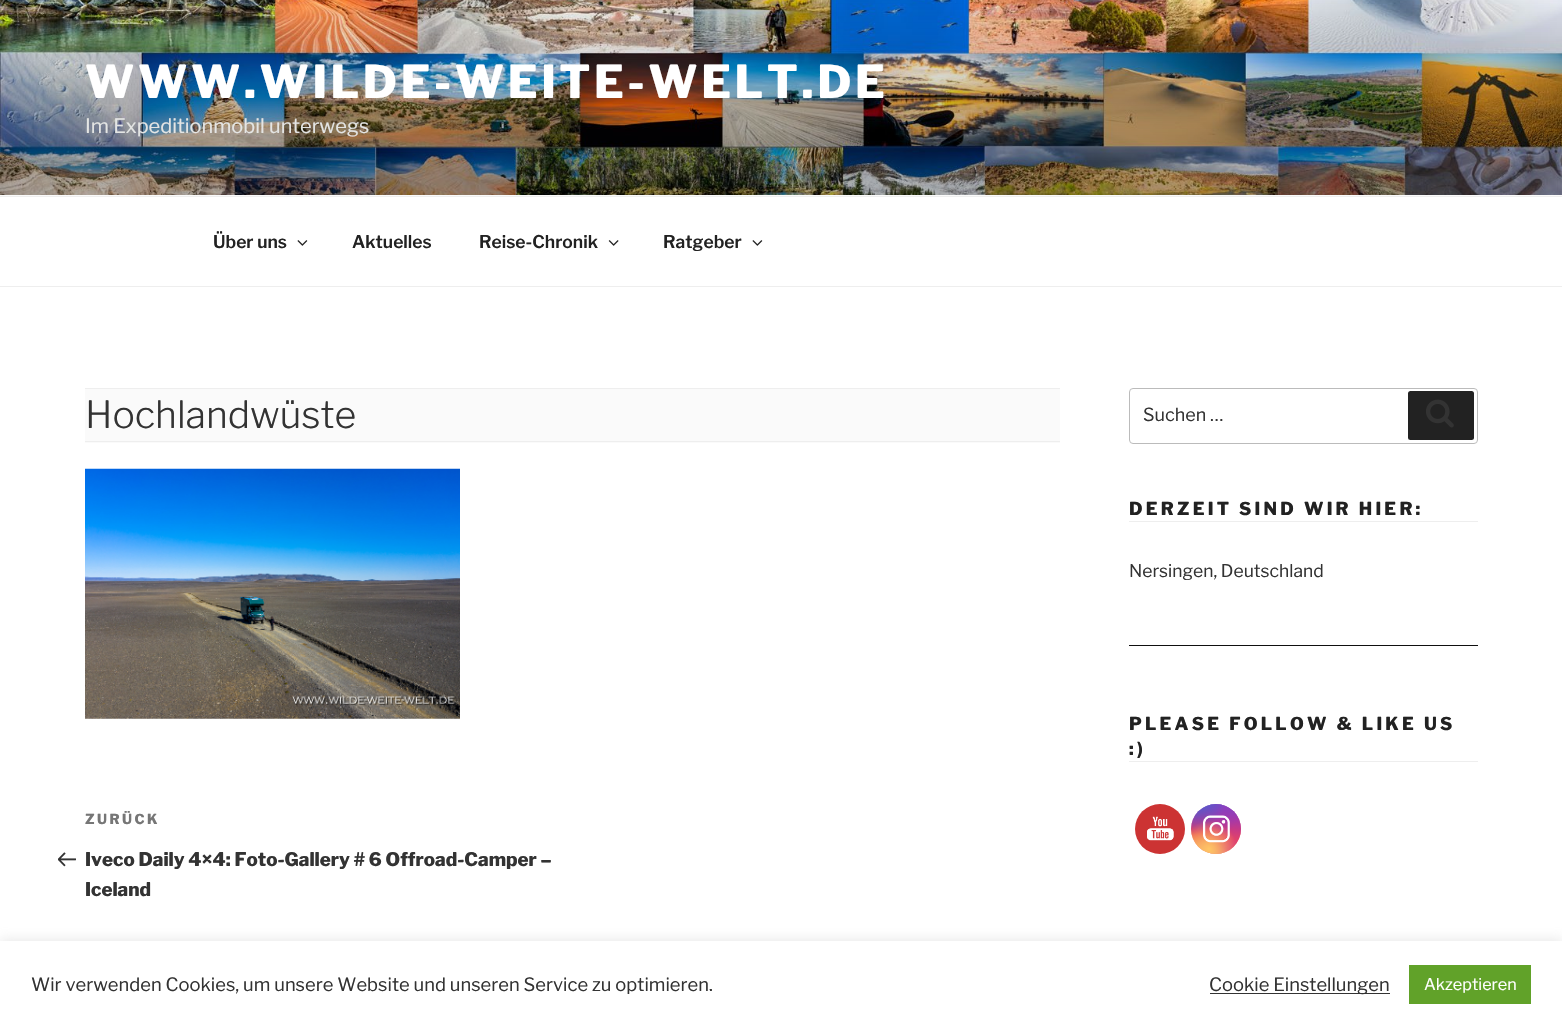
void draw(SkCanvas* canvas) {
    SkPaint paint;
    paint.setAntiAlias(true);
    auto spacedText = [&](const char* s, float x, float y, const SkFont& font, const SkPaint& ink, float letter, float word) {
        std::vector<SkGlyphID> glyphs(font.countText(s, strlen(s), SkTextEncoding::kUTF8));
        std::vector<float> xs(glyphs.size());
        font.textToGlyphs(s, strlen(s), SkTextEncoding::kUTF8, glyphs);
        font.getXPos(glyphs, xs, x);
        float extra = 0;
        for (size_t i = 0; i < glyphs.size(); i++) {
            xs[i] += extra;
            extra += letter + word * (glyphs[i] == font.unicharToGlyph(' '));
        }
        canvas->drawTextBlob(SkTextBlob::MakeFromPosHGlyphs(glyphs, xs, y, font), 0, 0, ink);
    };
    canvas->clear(0xFFFFFFFF);
    paint.setColor(0xFFFAFAFA);
    canvas->drawRect(SkRect::MakeXYWH(0, 195, 1562, 1), paint);
    canvas->drawImageRect(SkImages::DeferredFromEncodedData(SkData::MakeFromFileName("img1.png")), SkRect::MakeXYWH(0, 0, 1562, 195), SkSamplingOptions());
    SkFont font1(fontMgr->matchFamilyStyle("Libre Franklin", SkFontStyle(100, SkFontStyle::kNormal_Width, SkFontStyle::kUpright_Slant)), 45);
    font1.setSubpixel(true);
    paint.setColor(0xFFFFFFFF);
    spacedText("WWW.WILDE-WEITE-WELT.DE", 85, 98, font1, paint, 3.6f, 0);
    SkFont font2(fontMgr->matchFamilyStyle("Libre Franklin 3", SkFontStyle(100, SkFontStyle::kNormal_Width, SkFontStyle::kUpright_Slant)), 20);
    font2.setSubpixel(true);
    paint.setColor(0xFFE4E5E4);
    canvas->drawString("Im Expeditionmobil unterwegs", 85, 133, font2, paint);
    paint.setColor(0xFFEEEEEE);
    canvas->drawRect(SkRect::MakeXYWH(0, 196, 1562, 1), paint);
    canvas->drawRect(SkRect::MakeXYWH(0, 286, 1562, 1), paint);
    SkFont font3(fontMgr->matchFamilyStyle("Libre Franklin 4", SkFontStyle(100, SkFontStyle::kNormal_Width, SkFontStyle::kUpright_Slant)), 17.5f);
    font3.setSubpixel(true);
    paint.setColor(0xFF222222);
    canvas->drawString("Über uns", 213, 248, font3, paint);
    canvas->drawImageRect(SkImages::DeferredFromEncodedData(SkData::MakeFromFileName("img2.png")), SkRect::MakeXYWH(297, 240, 11, 6), SkSamplingOptions());
    canvas->drawString("Aktuelles", 352, 248, font3, paint);
    canvas->drawString("Reise-Chronik", 479, 248, font3, paint);
    canvas->drawImageRect(SkImages::DeferredFromEncodedData(SkData::MakeFromFileName("img3.png")), SkRect::MakeXYWH(608, 240, 11, 6), SkSamplingOptions());
    canvas->drawString("Ratgeber", 663, 248, font3, paint);
    canvas->drawImageRect(SkImages::DeferredFromEncodedData(SkData::MakeFromFileName("img2.png")), SkRect::MakeXYWH(752, 240, 11, 6), SkSamplingOptions());
    paint.setColor(0xFFFAFAFA);
    canvas->drawRect(SkRect::MakeXYWH(85, 389, 975, 54), paint);
    paint.setColor(0xFFEEEEEE);
    canvas->drawRect(SkRect::MakeXYWH(85, 388, 975, 1), paint);
    canvas->drawRect(SkRect::MakeXYWH(85, 441, 975, 1), paint);
    SkFont font4(fontMgr->matchFamilyStyle("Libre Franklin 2", SkFontStyle(100, SkFontStyle::kNormal_Width, SkFontStyle::kUpright_Slant)), 37.5f);
    font4.setSubpixel(true);
    paint.setColor(0xFF333333);
    canvas->drawString("Hochlandwüste", 85, 428, font4, paint);
    canvas->drawImageRect(SkImages::DeferredFromEncodedData(SkData::MakeFromFileName("img4.png")), SkRect::MakeXYWH(85, 468, 375, 251), SkSamplingOptions());
    SkFont font5(fontMgr->matchFamilyStyle("Libre Franklin", SkFontStyle(100, SkFontStyle::kNormal_Width, SkFontStyle::kUpright_Slant)), 13.75f);
    font5.setSubpixel(true);
    paint.setColor(0xFF767676);
    spacedText("ZURÜCK", 85, 824, font5, paint, 2.5f, 0);
    canvas->drawImageRect(SkImages::DeferredFromEncodedData(SkData::MakeFromFileName("img5.png")), SkRect::MakeXYWH(58, 852, 18, 15), SkSamplingOptions());
    SkFont font6(fontMgr->matchFamilyStyle("Libre Franklin", SkFontStyle(100, SkFontStyle::kNormal_Width, SkFontStyle::kUpright_Slant)), 18.75f);
    font6.setSubpixel(true);
    paint.setColor(0xFF333333);
    canvas->drawString("Iveco Daily 4×4: Foto-Gallery # 6 Offroad-Camper –", 85, 866, font6, paint);
    canvas->drawString("Iceland", 85, 896, font6, paint);
    paint.setStyle(SkPaint::kStroke_Style);
    paint.setStrokeWidth(1);
    paint.setColor(0xFFBBBBBB);
    canvas->drawRoundRect(SkRect::MakeXYWH(1129.5f, 388.5f, 348, 55), 3.5f, 3.5f, paint);
    SkFont font7(fontMgr->matchFamilyStyle("Libre Franklin 3", SkFontStyle(100, SkFontStyle::kNormal_Width, SkFontStyle::kUpright_Slant)), 18);
    font7.setSubpixel(true);
    paint.setStyle(SkPaint::kFill_Style);
    paint.setColor(0xFF333333);
    canvas->drawString("Suchen …", 1143, 421, font7, paint);
    paint.setColor(0xFF222222);
    canvas->drawRoundRect(SkRect::MakeXYWH(1408, 391, 66, 49), 2.5f, 2.5f, paint);
    canvas->drawImageRect(SkImages::DeferredFromEncodedData(SkData::MakeFromFileName("img6.png")), SkRect::MakeXYWH(1426, 399, 28, 29), SkSamplingOptions());
    paint.setColor(0xFFEEEEEE);
    canvas->drawRect(SkRect::MakeXYWH(1129, 521, 349, 1), paint);
    SkFont font8(fontMgr->matchFamilyStyle("Libre Franklin", SkFontStyle(100, SkFontStyle::kNormal_Width, SkFontStyle::kUpright_Slant)), 17.75f);
    font8.setSubpixel(true);
    paint.setColor(0xFF222222);
    spacedText("DERZEIT SIND WIR HIER:", 1129, 515, font8, paint, 3.25f, 0);
    SkFont font9(fontMgr->matchFamilyStyle("Libre Franklin 3", SkFontStyle(100, SkFontStyle::kNormal_Width, SkFontStyle::kUpright_Slant)), 17.5f);
    font9.setSubpixel(true);
    paint.setColor(0xFF333333);
    canvas->drawString("Nersingen, Deutschland", 1129, 577, font9, paint);
    paint.setColor(0xFF0F0F0F);
    canvas->drawRect(SkRect::MakeXYWH(1129, 645, 349, 1), paint);
    paint.setColor(0xFFEEEEEE);
    canvas->drawRect(SkRect::MakeXYWH(1129, 761, 349, 1), paint);
    paint.setColor(0xFF222222);
    spacedText("PLEASE FOLLOW & LIKE US", 1129, 730, font8, paint, 3.25f, 0);
    spacedText(":)", 1129, 755, font8, paint, 3.25f, 0);
    paint.setColor(0xFFCC3333);
    canvas->drawCircle(1160, 829, 25, paint);
    canvas->drawImageRect(SkImages::DeferredFromEncodedData(SkData::MakeFromFileName("img7.png")), SkRect::MakeXYWH(1147, 816, 27, 25), SkSamplingOptions());
    {
        const SkColor colors[] = {0xFF6559CA, 0xFFBC318F, 0xFFE33F5F, 0xFFF77638, 0xFFFEC66D};
        const float stops[] = {0, 0.3f, 0.5f, 0.7f, 1};
        const SkPoint ends[] = {{1216, 804}, {1216, 854}};
        paint.setShader(SkGradientShader::MakeLinear(ends, colors, stops, 5, SkTileMode::kClamp));
        paint.setAlpha(255);
    }
    canvas->drawCircle(1216, 829, 25, paint);
    {
        const SkColor colors[] = {0xFFD9317A, 0x00D9317A};
        const float stops[] = {0, 1};
        paint.setShader(SkGradientShader::MakeRadial({1241, 854}, 71, colors, stops, 2, SkTileMode::kClamp));
        paint.setAlpha(255);
    }
    canvas->drawCircle(1216, 829, 25, paint);
    {
        const SkColor colors[] = {0xFF893DC2, 0x00893DC2};
        const float stops[] = {0, 0.5f};
        SkMatrix m = SkMatrix::Translate(1221, 794).preScale(42, 85);
        paint.setShader(SkGradientShader::MakeRadial({0, 0}, 1, colors, stops, 2, SkTileMode::kClamp, 0, &m));
        paint.setAlpha(255);
    }
    canvas->drawCircle(1216, 829, 25, paint);
    {
        const SkColor colors[] = {0xFF893DC2, 0x00893DC2};
        const float stops[] = {0, 0.5f};
        paint.setShader(SkGradientShader::MakeRadial({1241, 804}, 71, colors, stops, 2, SkTileMode::kClamp));
        paint.setAlpha(255);
    }
    canvas->drawCircle(1216, 829, 25, paint);
    {
        const SkColor colors[] = {0xFF5258CF, 0x005258CF};
        const float stops[] = {0, 0.5f};
        SkMatrix m = SkMatrix::Translate(1201, 779).preScale(57, 106);
        paint.setShader(SkGradientShader::MakeRadial({0, 0}, 1, colors, stops, 2, SkTileMode::kClamp, 0, &m));
        paint.setAlpha(255);
    }
    canvas->drawCircle(1216, 829, 25, paint);
    {
        const SkColor colors[] = {0xFF5258CF, 0x005258CF};
        const float stops[] = {0, 0.5f};
        SkMatrix m = SkMatrix::Translate(1191, 791).preScale(71, 88);
        paint.setShader(SkGradientShader::MakeRadial({0, 0}, 1, colors, stops, 2, SkTileMode::kClamp, 0, &m));
        paint.setAlpha(255);
    }
    canvas->drawCircle(1216, 829, 25, paint);
    {
        const SkColor colors[] = {0xFFFEC564, 0x00FEC564};
        const float stops[] = {0, 0.5f};
        paint.setShader(SkGradientShader::MakeRadial({1191, 874}, 86, colors, stops, 2, SkTileMode::kClamp));
        paint.setAlpha(255);
    }
    canvas->drawCircle(1216, 829, 25, paint);
    {
        const SkColor colors[] = {0xFFFEC564, 0x00FEC564};
        const float stops[] = {0, 0.5f};
        paint.setShader(SkGradientShader::MakeRadial({1209, 849}, 56, colors, stops, 2, SkTileMode::kClamp));
        paint.setAlpha(255);
    }
    canvas->drawCircle(1216, 829, 25, paint);
    canvas->drawImageRect(SkImages::DeferredFromEncodedData(SkData::MakeFromFileName("img8.png")), SkRect::MakeXYWH(1203, 815, 27, 28), SkSamplingOptions());
    paint.setShader(nullptr);
    paint.setColor(0x4DACABAB);
    paint.setMaskFilter(SkMaskFilter::MakeBlur(kNormal_SkBlurStyle, 6));
    canvas->drawRect(SkRect::MakeXYWH(0, 940, 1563, 86), paint);
    paint.setMaskFilter(nullptr);
    paint.setColor(0xFFFFFFFF);
    canvas->drawRect(SkRect::MakeXYWH(0, 941, 1562, 86), paint);
    SkFont font10(fontMgr->matchFamilyStyle("Libre Franklin 3", SkFontStyle(100, SkFontStyle::kNormal_Width, SkFontStyle::kUpright_Slant)), 18.35f);
    font10.setSubpixel(true);
    paint.setColor(0xFF333333);
    canvas->drawString("Wir verwenden Cookies, um unsere Website und unseren Service zu optimieren.", 31, 991, font10, paint);
    canvas->drawRect(SkRect::MakeXYWH(1210, 993, 180, 1), paint);
    canvas->drawString("Cookie Einstellungen", 1209, 991, font10, paint);
    paint.setColor(0xFF61A229);
    canvas->drawRect(SkRect::MakeXYWH(1409, 965, 122, 39), paint);
    SkFont font11(fontMgr->matchFamilyStyle("Libre Franklin 3", SkFontStyle(100, SkFontStyle::kNormal_Width, SkFontStyle::kUpright_Slant)), 16.25f);
    font11.setSubpixel(true);
    paint.setColor(0xFFFFFFFF);
    canvas->drawString("Akzeptieren", 1424, 990, font11, paint);
}
